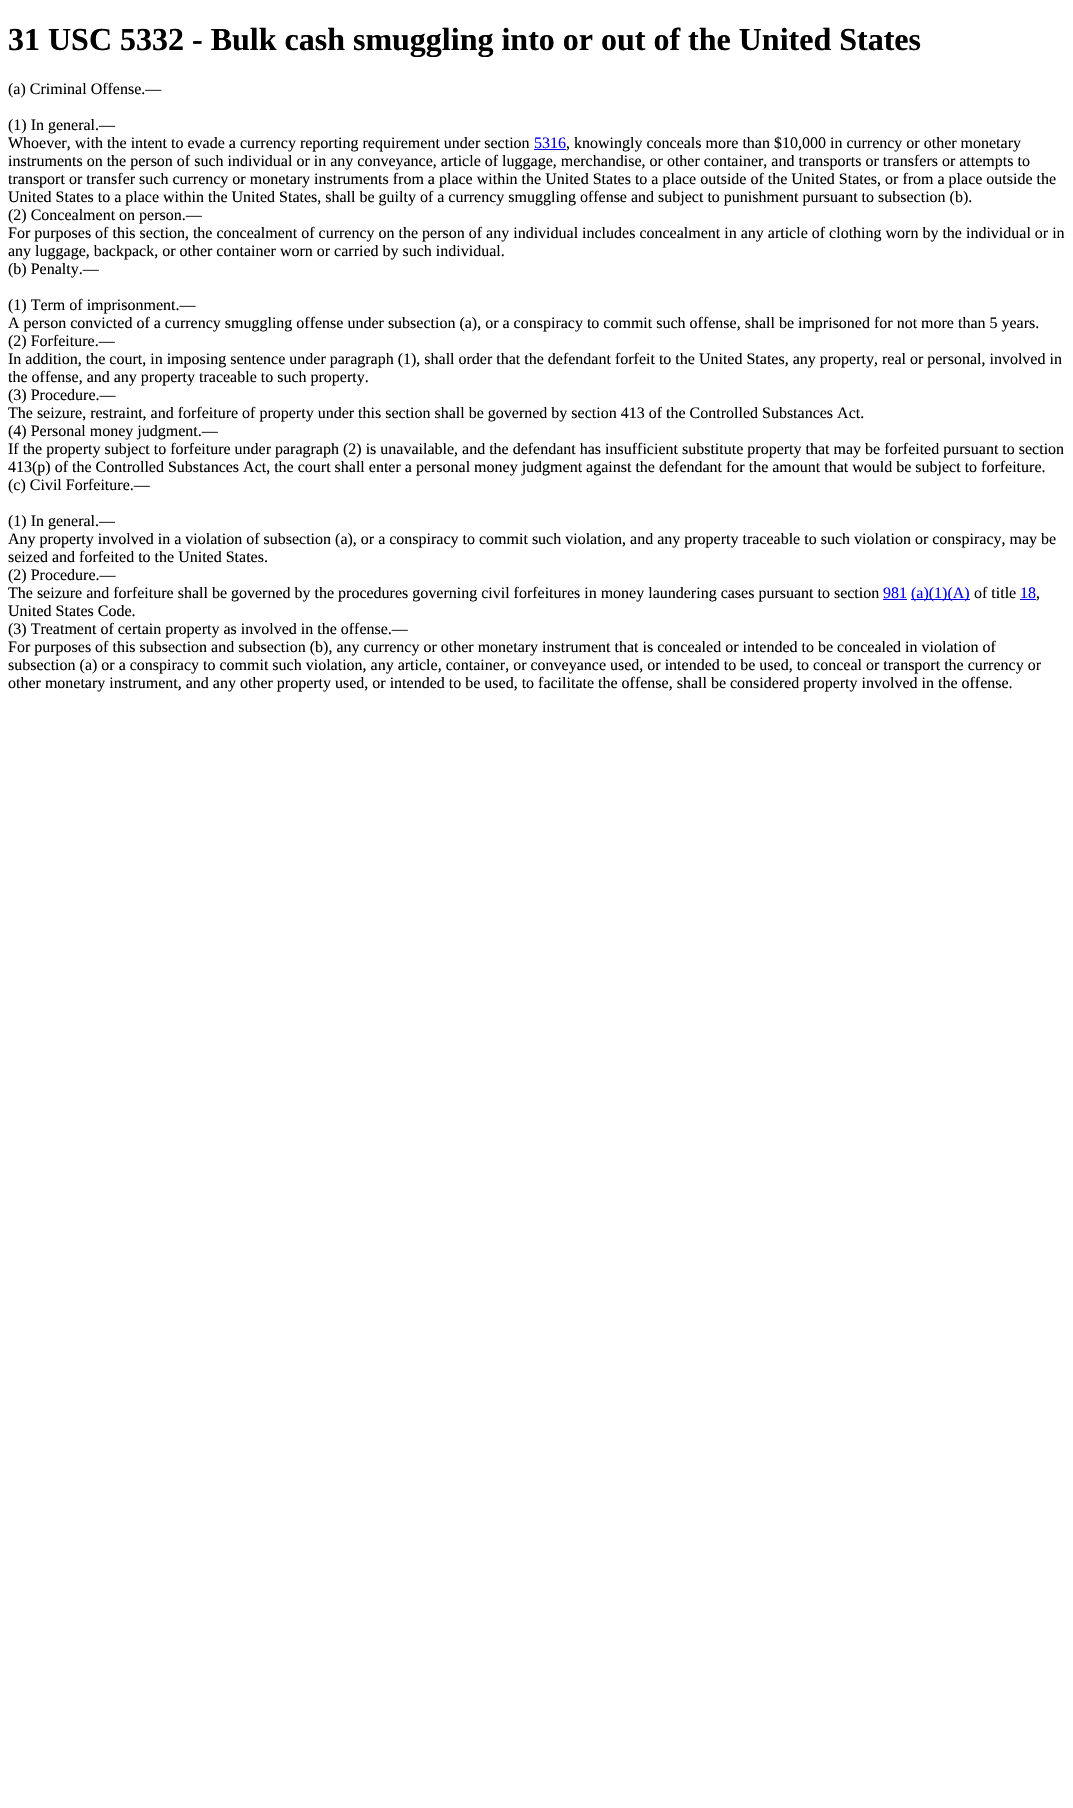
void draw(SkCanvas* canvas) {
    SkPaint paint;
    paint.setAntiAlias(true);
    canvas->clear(0xFFFFFFFF);
    SkFont font1(fontMgr->matchFamilyStyle("Liberation Serif", SkFontStyle::Bold()), 32);
    font1.setSubpixel(true);
    paint.setColor(0xFF000000);
    canvas->drawString("31 USC 5332 - Bulk cash smuggling into or out of the United States", 8, 50, font1, paint);
    SkFont font2(fontMgr->matchFamilyStyle("Liberation Serif", SkFontStyle::Normal()), 16);
    font2.setSubpixel(true);
    canvas->drawString("(a) Criminal Offense.—", 8, 94, font2, paint);
    canvas->drawString("(1) In general.—", 8, 130, font2, paint);
    canvas->drawString("Whoever, with the intent to evade a currency reporting requirement under section", 8, 148, font2, paint);
    paint.setColor(0xFF0000EE);
    canvas->drawString("5316", 534, 148, font2, paint);
    canvas->drawRect(SkRect::MakeXYWH(534, 149, 32, 1), paint);
    paint.setColor(0xFF000000);
    canvas->drawString(", knowingly conceals more than $10,000 in currency or other monetary", 566, 148, font2, paint);
    canvas->drawString("instruments on the person of such individual or in any conveyance, article of luggage, merchandise, or other container, and transports or transfers or attempts to", 8, 166, font2, paint);
    canvas->drawString("transport or transfer such currency or monetary instruments from a place within the United States to a place outside of the United States, or from a place outside the", 8, 184, font2, paint);
    canvas->drawString("United States to a place within the United States, shall be guilty of a currency smuggling offense and subject to punishment pursuant to subsection (b).", 8, 202, font2, paint);
    canvas->drawString("(2) Concealment on person.—", 8, 220, font2, paint);
    canvas->drawString("For purposes of this section, the concealment of currency on the person of any individual includes concealment in any article of clothing worn by the individual or in", 8, 238, font2, paint);
    canvas->drawString("any luggage, backpack, or other container worn or carried by such individual.", 8, 256, font2, paint);
    canvas->drawString("(b) Penalty.—", 8, 274, font2, paint);
    canvas->drawString("(1) Term of imprisonment.—", 8, 310, font2, paint);
    canvas->drawString("A person convicted of a currency smuggling offense under subsection (a), or a conspiracy to commit such offense, shall be imprisoned for not more than 5 years.", 8, 328, font2, paint);
    canvas->drawString("(2) Forfeiture.—", 8, 346, font2, paint);
    canvas->drawString("In addition, the court, in imposing sentence under paragraph (1), shall order that the defendant forfeit to the United States, any property, real or personal, involved in", 8, 364, font2, paint);
    canvas->drawString("the offense, and any property traceable to such property.", 8, 382, font2, paint);
    canvas->drawString("(3) Procedure.—", 8, 400, font2, paint);
    canvas->drawString("The seizure, restraint, and forfeiture of property under this section shall be governed by section 413 of the Controlled Substances Act.", 8, 418, font2, paint);
    canvas->drawString("(4) Personal money judgment.—", 8, 436, font2, paint);
    canvas->drawString("If the property subject to forfeiture under paragraph (2) is unavailable, and the defendant has insufficient substitute property that may be forfeited pursuant to section", 8, 454, font2, paint);
    canvas->drawString("413(p) of the Controlled Substances Act, the court shall enter a personal money judgment against the defendant for the amount that would be subject to forfeiture.", 8, 472, font2, paint);
    canvas->drawString("(c) Civil Forfeiture.—", 8, 490, font2, paint);
    canvas->drawString("(1) In general.—", 8, 526, font2, paint);
    canvas->drawString("Any property involved in a violation of subsection (a), or a conspiracy to commit such violation, and any property traceable to such violation or conspiracy, may be", 8, 544, font2, paint);
    canvas->drawString("seized and forfeited to the United States.", 8, 562, font2, paint);
    canvas->drawString("(2) Procedure.—", 8, 580, font2, paint);
    canvas->drawString("The seizure and forfeiture shall be governed by the procedures governing civil forfeitures in money laundering cases pursuant to section", 8, 598, font2, paint);
    paint.setColor(0xFF0000EE);
    canvas->drawString("981", 883, 598, font2, paint);
    canvas->drawRect(SkRect::MakeXYWH(883, 599, 24, 1), paint);
    canvas->drawRect(SkRect::MakeXYWH(911, 599, 59, 1), paint);
    canvas->drawString("(a)(1)(A)", 911, 598, font2, paint);
    paint.setColor(0xFF000000);
    canvas->drawString("of title", 974, 598, font2, paint);
    paint.setColor(0xFF0000EE);
    canvas->drawString("18", 1020, 598, font2, paint);
    canvas->drawRect(SkRect::MakeXYWH(1020, 599, 16, 1), paint);
    paint.setColor(0xFF000000);
    canvas->drawString(",", 1036, 598, font2, paint);
    canvas->drawString("United States Code.", 8, 616, font2, paint);
    canvas->drawString("(3) Treatment of certain property as involved in the offense.—", 8, 634, font2, paint);
    canvas->drawString("For purposes of this subsection and subsection (b), any currency or other monetary instrument that is concealed or intended to be concealed in violation of", 8, 652, font2, paint);
    canvas->drawString("subsection (a) or a conspiracy to commit such violation, any article, container, or conveyance used, or intended to be used, to conceal or transport the currency or", 8, 670, font2, paint);
    canvas->drawString("other monetary instrument, and any other property used, or intended to be used, to facilitate the offense, shall be considered property involved in the offense.", 8, 688, font2, paint);
}
